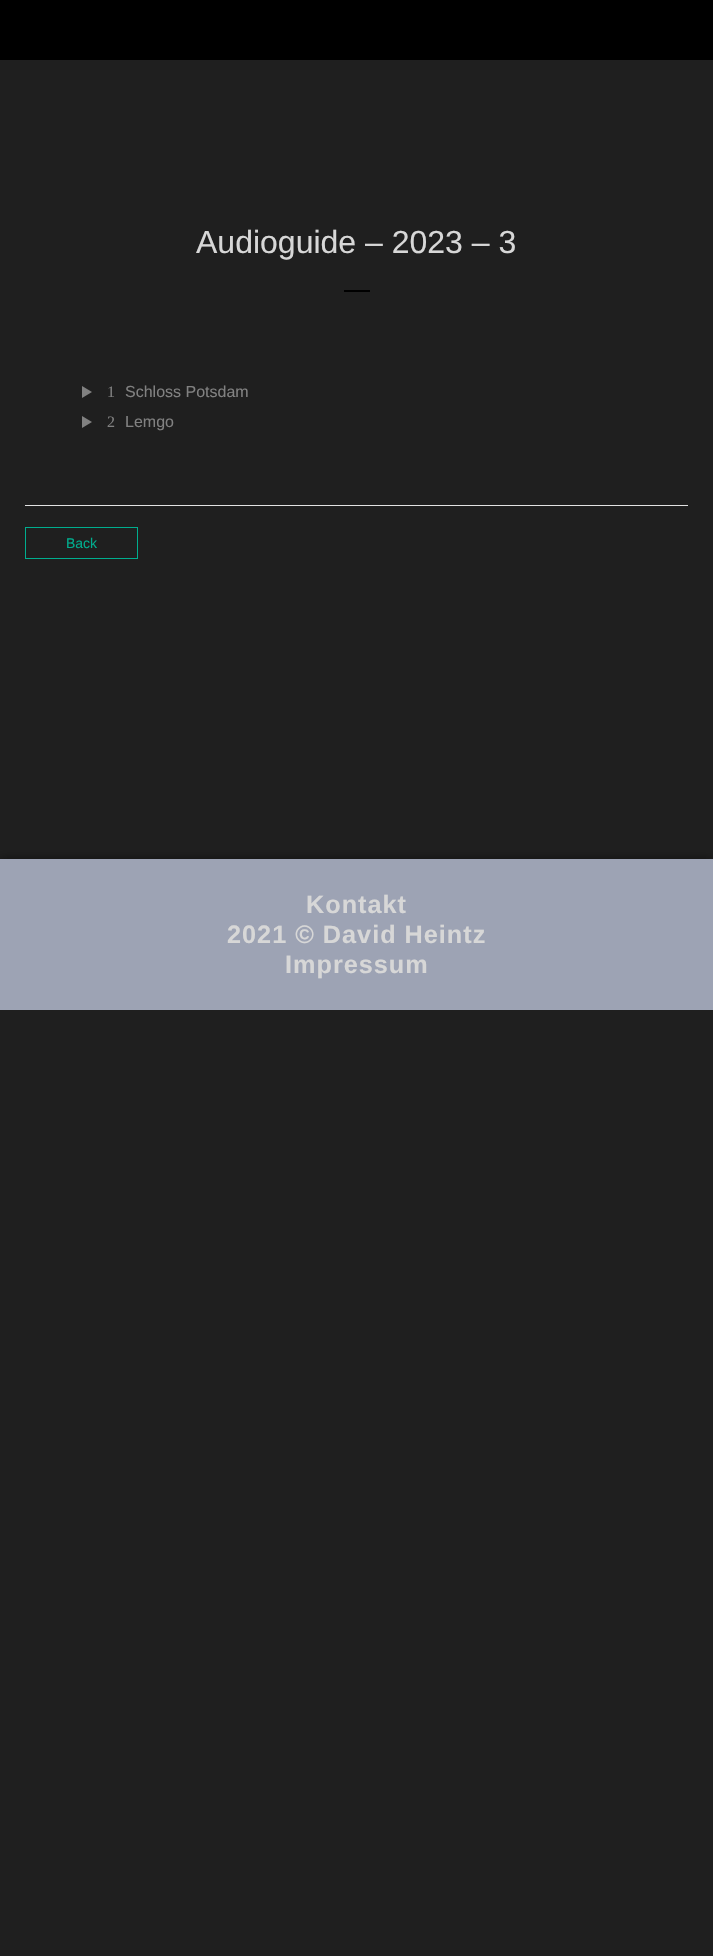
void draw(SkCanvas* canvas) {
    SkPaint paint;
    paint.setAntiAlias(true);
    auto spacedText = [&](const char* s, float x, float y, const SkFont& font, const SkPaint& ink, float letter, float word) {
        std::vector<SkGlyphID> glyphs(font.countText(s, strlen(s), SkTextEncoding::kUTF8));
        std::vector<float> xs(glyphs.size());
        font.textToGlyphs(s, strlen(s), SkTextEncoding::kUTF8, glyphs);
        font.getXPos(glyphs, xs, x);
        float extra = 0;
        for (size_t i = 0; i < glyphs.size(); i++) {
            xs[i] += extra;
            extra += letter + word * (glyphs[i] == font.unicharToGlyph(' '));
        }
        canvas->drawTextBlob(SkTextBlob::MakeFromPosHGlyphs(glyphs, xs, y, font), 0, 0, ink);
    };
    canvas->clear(0xFF1F1F1F);
    paint.setColor(0xFF000000);
    canvas->drawRect(SkRect::MakeXYWH(0, 0, 713, 60), paint);
    SkFont font1(fontMgr->matchFamilyStyle("Liberation Sans", SkFontStyle::Normal()), 32);
    font1.setSubpixel(true);
    paint.setColor(0xFFD7D7D7);
    canvas->drawString("Audioguide – 2023 – 3", 196, 253, font1, paint);
    paint.setColor(0xFF000000);
    canvas->drawRect(SkRect::MakeXYWH(344, 290, 26, 2), paint);
    paint.setColor(0xFF818181);
    canvas->drawPath(SkPathBuilder().moveTo(82, 386).lineTo(92, 392).lineTo(82, 398).close().detach(), paint);
    SkFont font2(fontMgr->matchFamilyStyle("Liberation Serif", SkFontStyle::Normal()), 16);
    font2.setSubpixel(true);
    canvas->drawString("1", 107, 397, font2, paint);
    SkFont font3(fontMgr->matchFamilyStyle("Liberation Sans", SkFontStyle::Normal()), 16);
    font3.setSubpixel(true);
    canvas->drawString("Schloss Potsdam", 125, 397, font3, paint);
    canvas->drawPath(SkPathBuilder().moveTo(82, 416).lineTo(92, 422).lineTo(82, 428).close().detach(), paint);
    canvas->drawString("2", 107, 427, font2, paint);
    canvas->drawString("Lemgo", 125, 427, font3, paint);
    paint.setColor(0xFFE2E2E2);
    canvas->drawRect(SkRect::MakeXYWH(25, 505, 663, 1), paint);
    paint.setStyle(SkPaint::kStroke_Style);
    paint.setStrokeWidth(1);
    paint.setColor(0xFF00AD8E);
    canvas->drawRect(SkRect::MakeXYWH(25.5f, 527.5f, 112, 31), paint);
    SkFont font4(fontMgr->matchFamilyStyle("Liberation Sans", SkFontStyle::Normal()), 14);
    font4.setSubpixel(true);
    paint.setStyle(SkPaint::kFill_Style);
    canvas->drawString("Back", 66, 548, font4, paint);
    canvas->save();
    canvas->clipRect(SkRect::MakeXYWH(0, 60, 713, 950));
    paint.setColor(0x80000000);
    paint.setMaskFilter(SkMaskFilter::MakeBlur(kNormal_SkBlurStyle, 5));
    canvas->drawRect(SkRect::MakeXYWH(0, 859, 713, 151), paint);
    paint.setMaskFilter(nullptr);
    canvas->restore();
    paint.setColor(0xFF9DA3B4);
    canvas->drawRect(SkRect::MakeXYWH(0, 859, 713, 151), paint);
    SkFont font5(fontMgr->matchFamilyStyle("Liberation Sans", SkFontStyle::Bold()), 25.25f);
    font5.setSubpixel(true);
    paint.setColor(0xFFD7D7D7);
    spacedText("Kontakt", 306, 913, font5, paint, 1, 0);
    spacedText("2021 © David Heintz", 227, 943, font5, paint, 1, 0);
    spacedText("Impressum", 285, 973, font5, paint, 1, 0);
}
